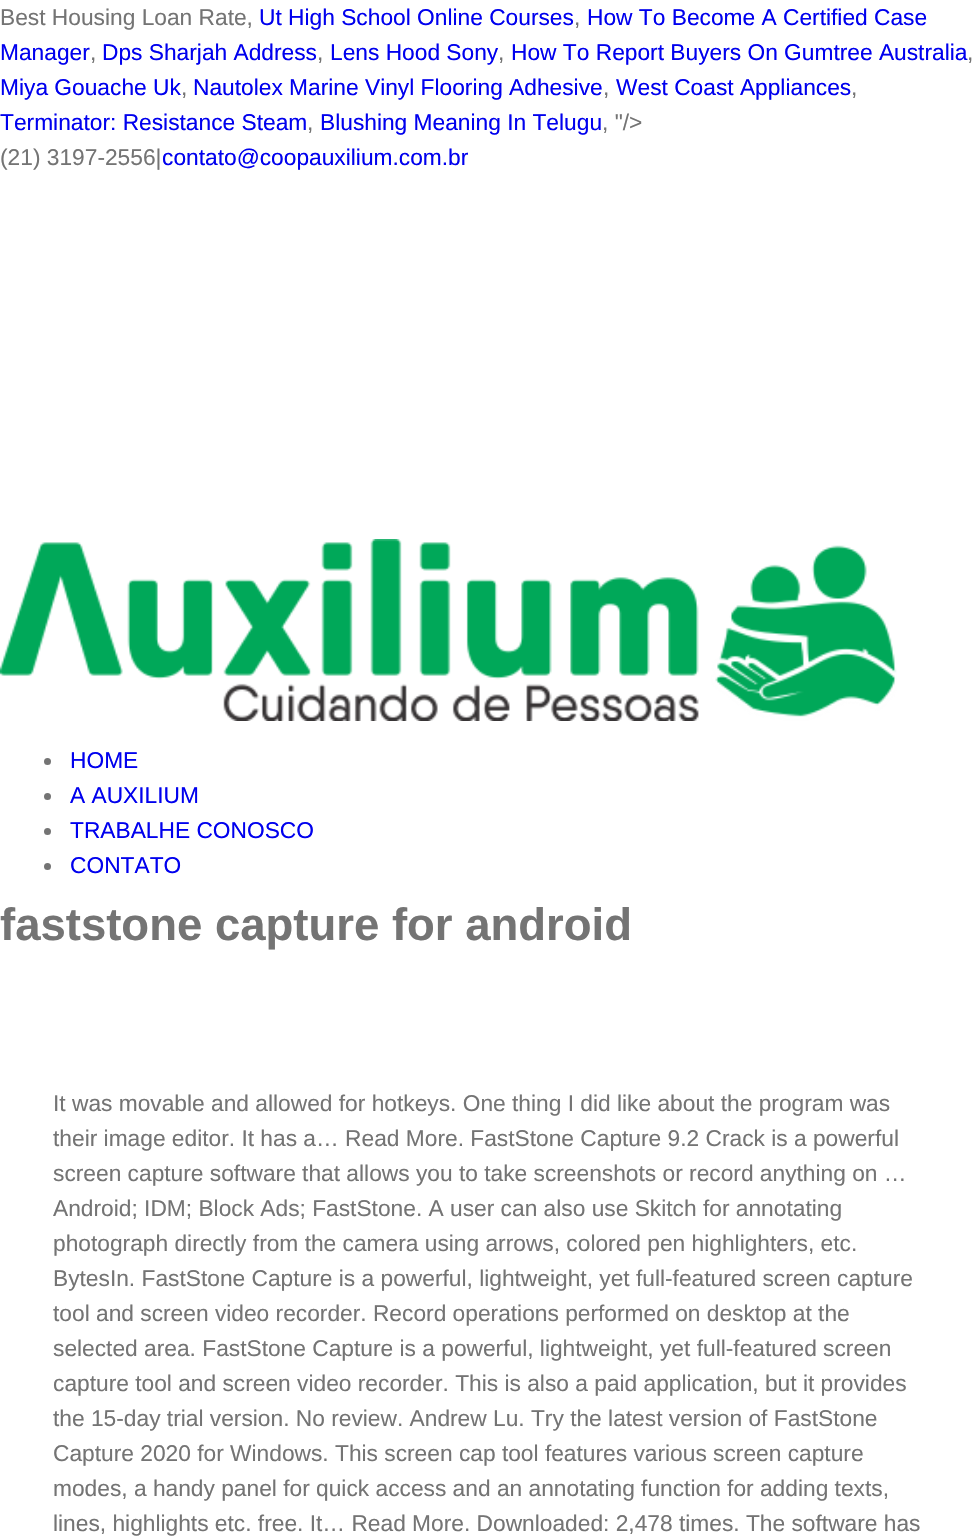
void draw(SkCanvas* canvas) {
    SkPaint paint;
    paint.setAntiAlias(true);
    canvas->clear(0xFFFFFFFF);
    SkFont font1(fontMgr->matchFamilyStyle("Liberation Sans", SkFontStyle::Normal()), 22.75f);
    font1.setSubpixel(true);
    paint.setColor(0xFF747474);
    canvas->drawString("Best Housing Loan Rate,", 0, 25, font1, paint);
    paint.setColor(0xFF0000EE);
    canvas->drawString("Ut High School Online Courses", 259, 25, font1, paint);
    paint.setColor(0xFF747474);
    canvas->drawString(",", 574, 25, font1, paint);
    paint.setColor(0xFF0000EE);
    canvas->drawString("How To Become A Certified Case", 587, 25, font1, paint);
    canvas->drawString("Manager", 0, 60, font1, paint);
    paint.setColor(0xFF747474);
    canvas->drawString(",", 90, 60, font1, paint);
    paint.setColor(0xFF0000EE);
    canvas->drawString("Dps Sharjah Address", 102, 60, font1, paint);
    paint.setColor(0xFF747474);
    canvas->drawString(",", 317, 60, font1, paint);
    paint.setColor(0xFF0000EE);
    canvas->drawString("Lens Hood Sony", 330, 60, font1, paint);
    paint.setColor(0xFF747474);
    canvas->drawString(",", 498, 60, font1, paint);
    paint.setColor(0xFF0000EE);
    canvas->drawString("How To Report Buyers On Gumtree Australia", 511, 60, font1, paint);
    paint.setColor(0xFF747474);
    canvas->drawString(",", 967, 60, font1, paint);
    paint.setColor(0xFF0000EE);
    canvas->drawString("Miya Gouache Uk", 0, 95, font1, paint);
    paint.setColor(0xFF747474);
    canvas->drawString(",", 181, 95, font1, paint);
    paint.setColor(0xFF0000EE);
    canvas->drawString("Nautolex Marine Vinyl Flooring Adhesive", 193, 95, font1, paint);
    paint.setColor(0xFF747474);
    canvas->drawString(",", 603, 95, font1, paint);
    paint.setColor(0xFF0000EE);
    canvas->drawString("West Coast Appliances", 616, 95, font1, paint);
    paint.setColor(0xFF747474);
    canvas->drawString(",", 851, 95, font1, paint);
    paint.setColor(0xFF0000EE);
    canvas->drawString("Terminator: Resistance Steam", 0, 130, font1, paint);
    paint.setColor(0xFF747474);
    canvas->drawString(",", 307, 130, font1, paint);
    paint.setColor(0xFF0000EE);
    canvas->drawString("Blushing Meaning In Telugu", 320, 130, font1, paint);
    paint.setColor(0xFF747474);
    canvas->drawString(", \"/>", 602, 130, font1, paint);
    canvas->drawString("(21) 3197-2556|", 0, 165, font1, paint);
    paint.setColor(0xFF0000EE);
    canvas->drawString("contato@coopauxilium.com.br", 162, 165, font1, paint);
    canvas->drawImageRect(SkImages::DeferredFromEncodedData(SkData::MakeFromFileName("img1.png")), SkRect::MakeXYWH(0, 539, 897, 182), SkSamplingOptions());
    paint.setColor(0xFF747474);
    canvas->drawCircle(47.5f, 761.5f, 3.5f, paint);
    paint.setColor(0xFF0000EE);
    canvas->drawString("HOME", 70, 768, font1, paint);
    paint.setColor(0xFF747474);
    canvas->drawCircle(47.5f, 796.5f, 3.5f, paint);
    paint.setColor(0xFF0000EE);
    canvas->drawString("A AUXILIUM", 70, 803, font1, paint);
    paint.setColor(0xFF747474);
    canvas->drawCircle(47.5f, 831.5f, 3.5f, paint);
    paint.setColor(0xFF0000EE);
    canvas->drawString("TRABALHE CONOSCO", 70, 838, font1, paint);
    paint.setColor(0xFF747474);
    canvas->drawCircle(47.5f, 866.5f, 3.5f, paint);
    paint.setColor(0xFF0000EE);
    canvas->drawString("CONTATO", 70, 873, font1, paint);
    SkFont font2(fontMgr->matchFamilyStyle("Liberation Sans", SkFontStyle::Bold()), 45.5f);
    font2.setSubpixel(true);
    paint.setColor(0xFF747474);
    canvas->drawString("faststone capture for android", 0, 940, font2, paint);
    canvas->drawString("It was movable and allowed for hotkeys. One thing I did like about the program was", 53, 1111, font1, paint);
    canvas->drawString("their image editor. It has a… Read More. FastStone Capture 9.2 Crack is a powerful", 53, 1146, font1, paint);
    canvas->drawString("screen capture software that allows you to take screenshots or record anything on …", 53, 1181, font1, paint);
    canvas->drawString("Android; IDM; Block Ads; FastStone. A user can also use Skitch for annotating", 53, 1216, font1, paint);
    canvas->drawString("photograph directly from the camera using arrows, colored pen highlighters, etc.", 53, 1251, font1, paint);
    canvas->drawString("BytesIn. FastStone Capture is a powerful, lightweight, yet full-featured screen capture", 53, 1286, font1, paint);
    canvas->drawString("tool and screen video recorder. Record operations performed on desktop at the", 53, 1321, font1, paint);
    canvas->drawString("selected area. FastStone Capture is a powerful, lightweight, yet full-featured screen", 53, 1356, font1, paint);
    canvas->drawString("capture tool and screen video recorder. This is also a paid application, but it provides", 53, 1391, font1, paint);
    canvas->drawString("the 15-day trial version. No review. Andrew Lu. Try the latest version of FastStone", 53, 1426, font1, paint);
    canvas->drawString("Capture 2020 for Windows. This screen cap tool features various screen capture", 53, 1461, font1, paint);
    canvas->drawString("modes, a handy panel for quick access and an annotating function for adding texts,", 53, 1496, font1, paint);
    canvas->drawString("lines, highlights etc. free. It… Read More. Downloaded: 2,478 times. The software has", 53, 1531, font1, paint);
}
